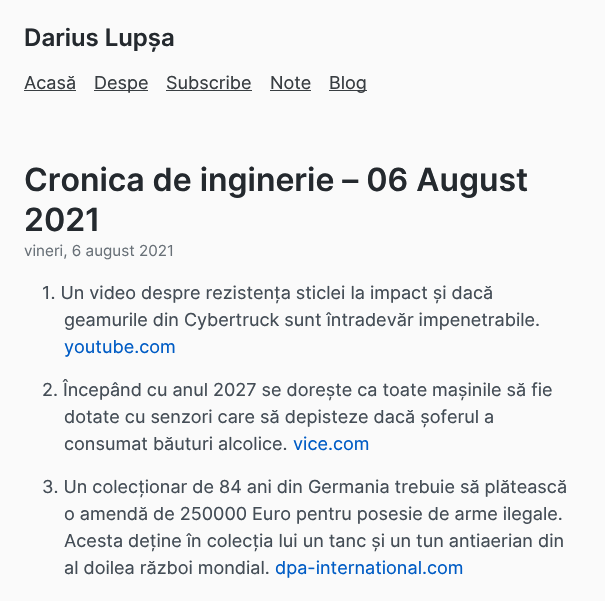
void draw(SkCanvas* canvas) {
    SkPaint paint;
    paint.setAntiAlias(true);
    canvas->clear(0xFFFAFAFA);
    SkFont font1(fontMgr->matchFamilyStyle("Inter", SkFontStyle(600, SkFontStyle::kNormal_Width, SkFontStyle::kUpright_Slant)), 24);
    font1.setSubpixel(true);
    paint.setColor(0xFF24292E);
    canvas->drawString("Darius Lupșa", 24, 46, font1, paint);
    SkFont font2(fontMgr->matchFamilyStyle("Inter", SkFontStyle::Normal()), 18);
    font2.setSubpixel(true);
    paint.setColor(0xFF393E42);
    canvas->drawString("Acasă", 24, 89, font2, paint);
    canvas->drawRect(SkRect::MakeXYWH(24, 90, 52, 1), paint);
    canvas->drawRect(SkRect::MakeXYWH(94, 90, 54, 1), paint);
    canvas->drawString("Despe", 94, 89, font2, paint);
    canvas->drawString("Subscribe", 166, 89, font2, paint);
    canvas->drawRect(SkRect::MakeXYWH(166, 90, 86, 1), paint);
    canvas->drawString("Note", 270, 89, font2, paint);
    canvas->drawRect(SkRect::MakeXYWH(270, 90, 41, 1), paint);
    canvas->drawRect(SkRect::MakeXYWH(329, 90, 38, 1), paint);
    canvas->drawString("Blog", 329, 89, font2, paint);
    SkFont font3(fontMgr->matchFamilyStyle("Inter", SkFontStyle(600, SkFontStyle::kNormal_Width, SkFontStyle::kUpright_Slant)), 32);
    font3.setSubpixel(true);
    paint.setColor(0xFF24292E);
    canvas->drawString("Cronica de inginerie – 06 August", 24, 191, font3, paint);
    canvas->drawString("2021", 24, 231, font3, paint);
    SkFont font4(fontMgr->matchFamilyStyle("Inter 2", SkFontStyle::Normal()), 15.25f);
    font4.setSubpixel(true);
    paint.setColor(0xFF687077);
    canvas->drawString("vineri, 6 august 2021", 24, 256, font4, paint);
    paint.setColor(0xFF444D56);
    canvas->drawString("1. Un video despre rezistența sticlei la impact și dacă", 42, 299, font2, paint);
    canvas->drawString("geamurile din Cybertruck sunt întradevăr impenetrabile.", 64, 326, font2, paint);
    paint.setColor(0xFF005CC5);
    canvas->drawString("youtube.com", 64, 353, font2, paint);
    paint.setColor(0xFF444D56);
    canvas->drawString("2. Începând cu anul 2027 se dorește ca toate mașinile să fie", 42, 396, font2, paint);
    canvas->drawString("dotate cu senzori care să depisteze dacă șoferul a", 64, 423, font2, paint);
    canvas->drawString("consumat băuturi alcolice.", 64, 450, font2, paint);
    paint.setColor(0xFF005CC5);
    canvas->drawString("vice.com", 293, 450, font2, paint);
    paint.setColor(0xFF444D56);
    canvas->drawString("3. Un colecționar de 84 ani din Germania trebuie să plătească", 42, 493, font2, paint);
    canvas->drawString("o amendă de 250000 Euro pentru posesie de arme ilegale.", 64, 520, font2, paint);
    canvas->drawString("Acesta deține în colecția lui un tanc și un tun antiaerian din", 64, 547, font2, paint);
    canvas->drawString("al doilea război mondial.", 64, 574, font2, paint);
    paint.setColor(0xFF005CC5);
    canvas->drawString("dpa-international.com", 275, 574, font2, paint);
}
